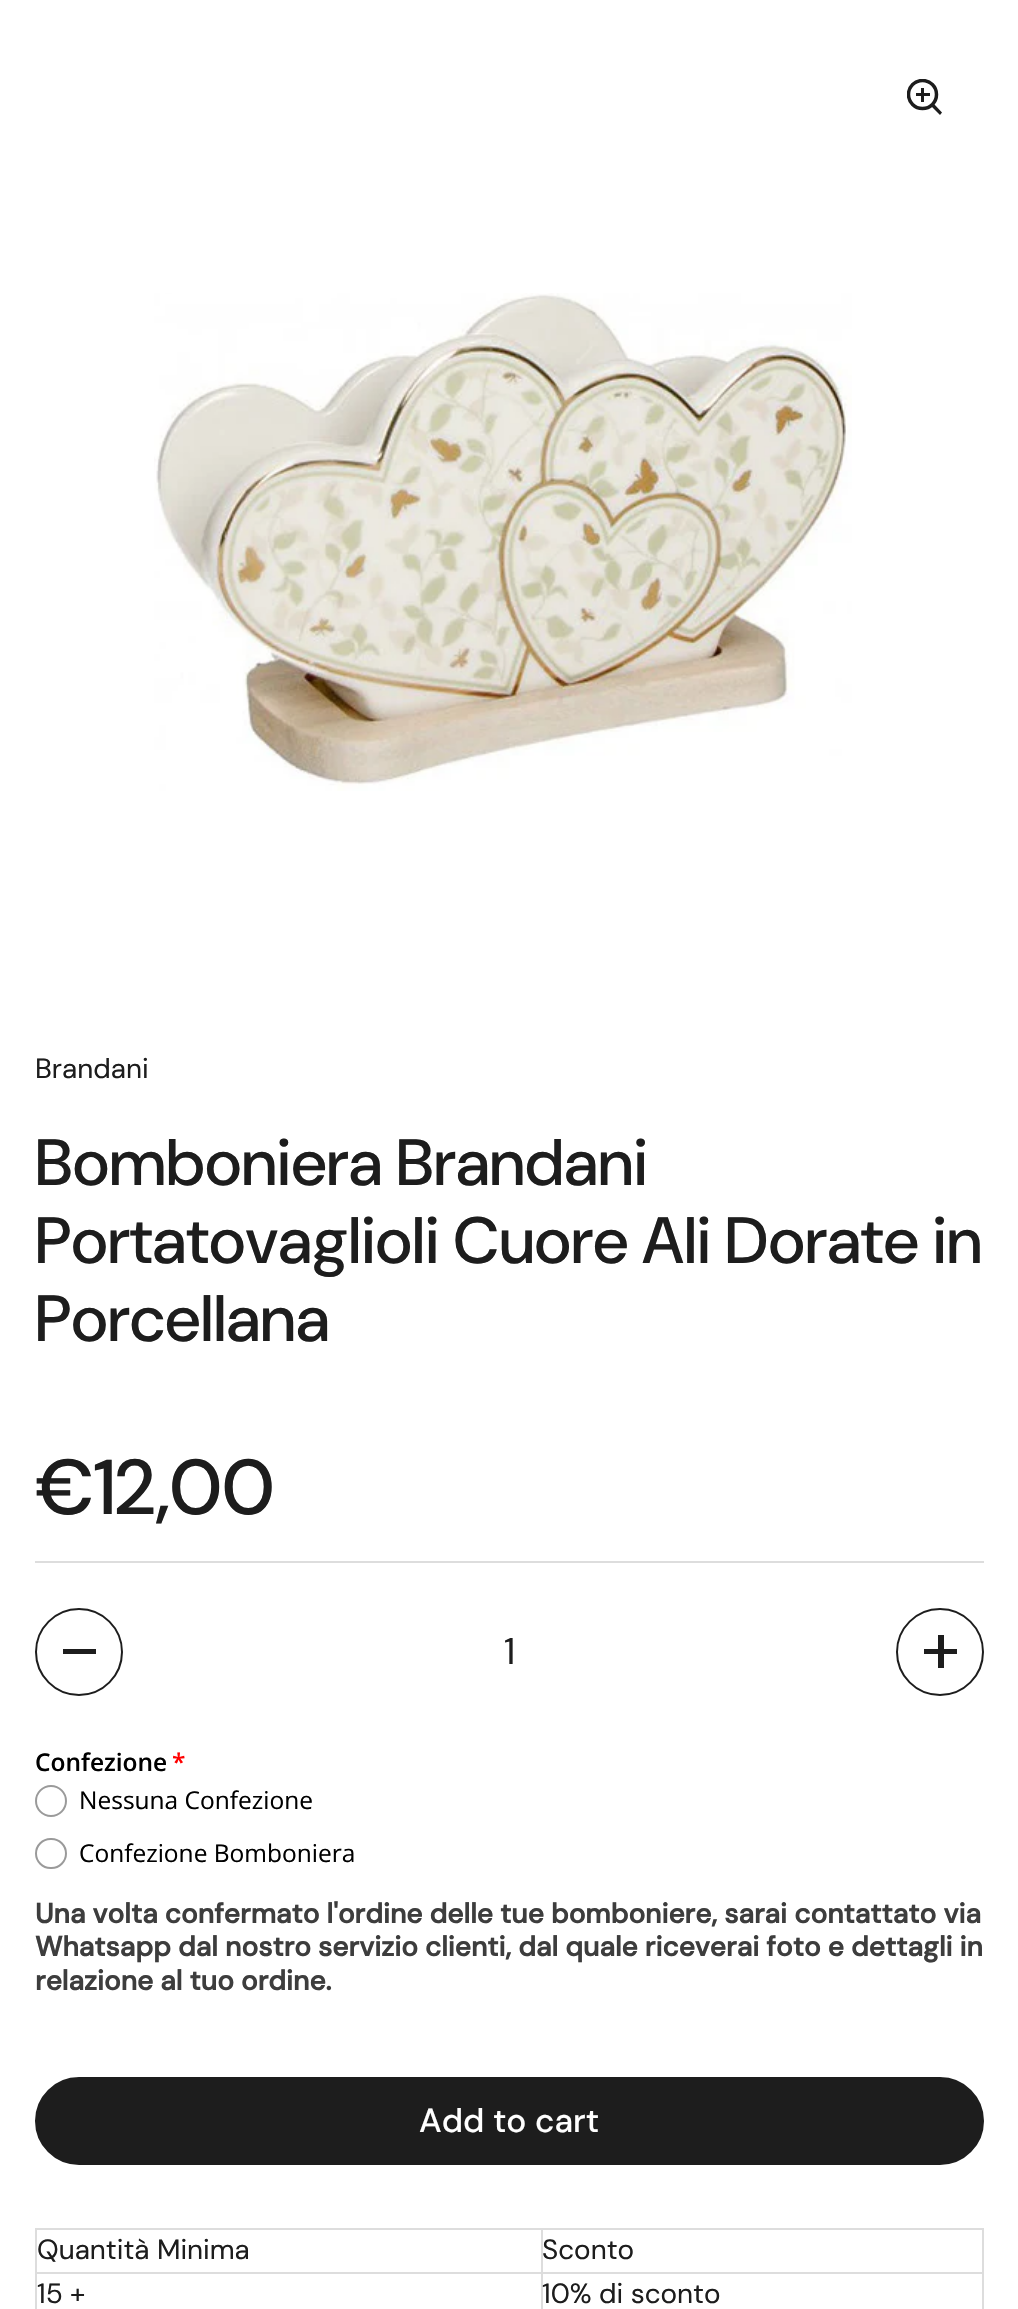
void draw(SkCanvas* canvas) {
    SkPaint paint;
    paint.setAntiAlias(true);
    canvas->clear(0xFFFFFFFF);
    canvas->save();
    canvas->clipRect(SkRect::MakeXYWH(907, 79, 36, 37));
    paint.setStyle(SkPaint::kStroke_Style);
    paint.setStrokeWidth(3.5f);
    paint.setColor(0xFF1D1D1D);
    canvas->drawCircle(922.5f, 94.5f, 14, paint);
    canvas->restore();
    paint.setStyle(SkPaint::kFill_Style);
    canvas->drawRect(SkRect::MakeXYWH(921, 88, 3, 14), paint);
    canvas->drawRect(SkRect::MakeXYWH(916, 93, 14, 3), paint);
    canvas->drawPath(SkPathBuilder().moveTo(931.5f, 106.5f).lineTo(934, 104).lineTo(942, 112.5f).lineTo(940, 115).close().detach(), paint);
    canvas->drawImageRect(SkImages::DeferredFromEncodedData(SkData::MakeFromFileName("img1.png")), SkRect::MakeXYWH(154, 293, 698, 498), SkSamplingOptions());
    SkFont font1(fontMgr->matchFamilyStyle("DM Sans", SkFontStyle::Normal()), 27.9f);
    font1.setSubpixel(true);
    canvas->drawString("Brandani", 35, 1078, font1, paint);
    SkFont font2(fontMgr->matchFamilyStyle("DM Sans", SkFontStyle(500, SkFontStyle::kNormal_Width, SkFontStyle::kUpright_Slant)), 65.3f);
    font2.setSubpixel(true);
    canvas->drawString("Bomboniera Brandani", 35, 1185, font2, paint);
    canvas->drawString("Portatovaglioli Cuore Ali Dorate in", 35, 1263, font2, paint);
    canvas->drawString("Porcellana", 35, 1341, font2, paint);
    SkFont font3(fontMgr->matchFamilyStyle("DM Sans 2", SkFontStyle(500, SkFontStyle::kNormal_Width, SkFontStyle::kUpright_Slant)), 77.5f);
    font3.setSubpixel(true);
    canvas->drawString("€12,00", 35, 1514, font3, paint);
    paint.setColor(0xFFDDDDDD);
    canvas->drawRect(SkRect::MakeXYWH(35, 1561, 949, 2), paint);
    paint.setStyle(SkPaint::kStroke_Style);
    paint.setStrokeWidth(2);
    paint.setColor(0xFF1D1D1D);
    canvas->drawCircle(79, 1652, 43, paint);
    paint.setStyle(SkPaint::kFill_Style);
    canvas->drawRect(SkRect::MakeXYWH(63, 1649, 33, 5), paint);
    SkFont font4(fontMgr->matchFamilyStyle("DM Sans 2", SkFontStyle::Normal()), 37);
    font4.setSubpixel(true);
    canvas->drawString("1", 504, 1664, font4, paint);
    paint.setStyle(SkPaint::kStroke_Style);
    canvas->drawCircle(940, 1652, 43, paint);
    paint.setStyle(SkPaint::kFill_Style);
    canvas->drawRect(SkRect::MakeXYWH(938, 1635, 6, 33), paint);
    canvas->drawRect(SkRect::MakeXYWH(924, 1649, 33, 5), paint);
    SkFont font5(fontMgr->matchFamilyStyle("Open Sans", SkFontStyle(600, SkFontStyle::kNormal_Width, SkFontStyle::kUpright_Slant)), 24.5f);
    font5.setSubpixel(true);
    paint.setColor(0xFF000000);
    canvas->drawString("Confezione", 35, 1771, font5, paint);
    paint.setColor(0xFFFF0000);
    canvas->drawString("*", 172, 1771, font5, paint);
    paint.setStyle(SkPaint::kStroke_Style);
    paint.setColor(0xFF9A9A9A);
    canvas->drawCircle(51, 1801, 15, paint);
    SkFont font6(fontMgr->matchFamilyStyle("Open Sans", SkFontStyle::Normal()), 24.5f);
    font6.setSubpixel(true);
    paint.setStyle(SkPaint::kFill_Style);
    paint.setColor(0xFF000000);
    canvas->drawString("Nessuna Confezione", 79, 1809, font6, paint);
    paint.setStyle(SkPaint::kStroke_Style);
    paint.setColor(0xFF9A9A9A);
    canvas->drawRoundRect(SkRect::MakeXYWH(36, 1839, 30, 29), 14.5f, 14.5f, paint);
    paint.setStyle(SkPaint::kFill_Style);
    paint.setColor(0xFF000000);
    canvas->drawString("Confezione Bomboniera", 79, 1862, font6, paint);
    SkFont font7(fontMgr->matchFamilyStyle("DM Sans", SkFontStyle::Bold()), 27.9f);
    font7.setSubpixel(true);
    paint.setColor(0xFF3D3D3D);
    canvas->drawString("Una volta confermato l'ordine delle tue bomboniere, sarai contattato via", 35, 1923, font7, paint);
    canvas->drawString("Whatsapp dal nostro servizio clienti, dal quale riceverai foto e dettagli in", 35, 1956, font7, paint);
    canvas->drawString("relazione al tuo ordine.", 35, 1990, font7, paint);
    paint.setColor(0xFF1D1D1D);
    canvas->drawRoundRect(SkRect::MakeXYWH(36, 2078, 947, 86), 43, 43, paint);
    paint.setStyle(SkPaint::kStroke_Style);
    canvas->drawRoundRect(SkRect::MakeXYWH(36, 2078, 947, 86), 43, 43, paint);
    SkFont font8(fontMgr->matchFamilyStyle("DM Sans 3", SkFontStyle(500, SkFontStyle::kNormal_Width, SkFontStyle::kUpright_Slant)), 33.5f);
    font8.setSubpixel(true);
    paint.setStyle(SkPaint::kFill_Style);
    paint.setColor(0xFFFFFFFF);
    canvas->drawString("Add to cart", 419, 2132, font8, paint);
    paint.setColor(0xFFDDDDDD);
    canvas->drawRect(SkRect::MakeXYWH(541, 2228, 443, 2), paint);
    canvas->drawRect(SkRect::MakeXYWH(541, 2272, 443, 2), paint);
    canvas->drawRect(SkRect::MakeXYWH(541, 2272, 2, 37), paint);
    canvas->drawRect(SkRect::MakeXYWH(35, 2272, 508, 2), paint);
    canvas->drawRect(SkRect::MakeXYWH(541, 2228, 2, 45), paint);
    canvas->drawRect(SkRect::MakeXYWH(35, 2228, 508, 2), paint);
    canvas->drawRect(SkRect::MakeXYWH(35, 2272, 2, 37), paint);
    canvas->drawRect(SkRect::MakeXYWH(35, 2228, 2, 45), paint);
    paint.setColor(0xFF1D1D1D);
    canvas->drawString("Quantità Minima", 37, 2259, font1, paint);
    paint.setColor(0xFFDDDDDD);
    canvas->drawRect(SkRect::MakeXYWH(982, 2272, 2, 37), paint);
    canvas->drawRect(SkRect::MakeXYWH(982, 2228, 2, 45), paint);
    paint.setColor(0xFF1D1D1D);
    canvas->drawString("Sconto", 542, 2259, font1, paint);
    canvas->drawString("15 +", 37, 2303, font1, paint);
    canvas->drawString("10% di sconto", 542, 2303, font1, paint);
}
